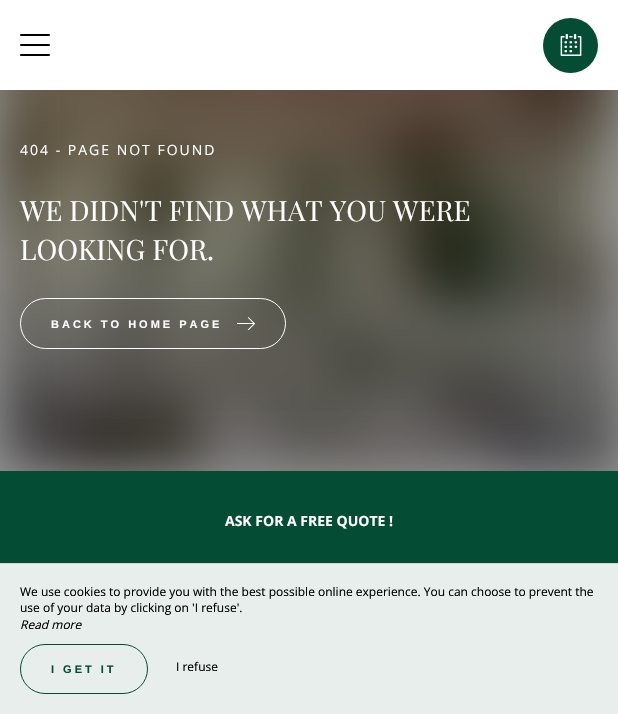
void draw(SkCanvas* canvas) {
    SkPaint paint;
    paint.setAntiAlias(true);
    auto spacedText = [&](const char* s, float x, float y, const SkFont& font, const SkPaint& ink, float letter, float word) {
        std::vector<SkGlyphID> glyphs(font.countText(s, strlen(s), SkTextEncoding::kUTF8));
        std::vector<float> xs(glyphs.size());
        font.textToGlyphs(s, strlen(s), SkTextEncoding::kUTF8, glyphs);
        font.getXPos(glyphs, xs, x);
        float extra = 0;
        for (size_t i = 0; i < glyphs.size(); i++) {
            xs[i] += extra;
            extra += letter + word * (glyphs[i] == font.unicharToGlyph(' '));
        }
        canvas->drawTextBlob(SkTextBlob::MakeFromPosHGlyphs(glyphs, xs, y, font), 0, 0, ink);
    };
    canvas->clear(0xFF999999);
    paint.setColor(0xFFFFFFFF);
    canvas->drawRect(SkRect::MakeXYWH(0, 0, 618, 90), paint);
    paint.setColor(0xFF000000);
    canvas->drawRoundRect(SkRect::MakeXYWH(20, 34, 30, 2), 1, 1, paint);
    canvas->drawRoundRect(SkRect::MakeXYWH(20, 44, 30, 2), 1, 1, paint);
    canvas->drawRoundRect(SkRect::MakeXYWH(20, 54, 30, 2), 1, 1, paint);
    paint.setColor(0xFF044C34);
    canvas->drawCircle(570.5f, 45.5f, 27.5f, paint);
    canvas->drawImageRect(SkImages::DeferredFromEncodedData(SkData::MakeFromFileName("img1.png")), SkRect::MakeXYWH(560, 34, 22, 22), SkSamplingOptions());
    canvas->drawImageRect(SkImages::DeferredFromEncodedData(SkData::MakeFromFileName("img2.png")), SkRect::MakeXYWH(0, 90, 618, 381), SkSamplingOptions());
    SkFont font1(fontMgr->matchFamilyStyle("Open Sans", SkFontStyle::Normal()), 14);
    font1.setSubpixel(true);
    paint.setColor(0xFFFFFFFF);
    spacedText("404 - PAGE NOT FOUND", 20, 155, font1, paint, 2, 0);
    SkFont font2(fontMgr->matchFamilyStyle("Playfair Display", SkFontStyle::Normal()), 28);
    font2.setSubpixel(true);
    canvas->drawString("WE DIDN'T FIND WHAT YOU WERE", 20, 221, font2, paint);
    canvas->drawString("LOOKING FOR.", 20, 260, font2, paint);
    paint.setStyle(SkPaint::kStroke_Style);
    paint.setStrokeWidth(1);
    canvas->drawRoundRect(SkRect::MakeXYWH(20.5f, 298.5f, 265, 50), 25, 25, paint);
    SkFont font3(fontMgr->matchFamilyStyle("Liberation Sans", SkFontStyle::Bold()), 11);
    font3.setSubpixel(true);
    paint.setStyle(SkPaint::kFill_Style);
    spacedText("BACK TO HOME PAGE", 51, 328, font3, paint, 3, 0);
    canvas->drawImageRect(SkImages::DeferredFromEncodedData(SkData::MakeFromFileName("img3.png")), SkRect::MakeXYWH(237, 317, 18, 13), SkSamplingOptions());
    paint.setColor(0xFF044C34);
    canvas->drawRect(SkRect::MakeXYWH(0, 471, 618, 243), paint);
    SkFont font4(fontMgr->matchFamilyStyle("Open Sans", SkFontStyle::Bold()), 14);
    font4.setSubpixel(true);
    paint.setColor(0xFFFFFFFF);
    canvas->drawString("ASK FOR A FREE QUOTE !", 225, 526, font4, paint);
    paint.setColor(0xE6FFFFFF);
    canvas->drawRect(SkRect::MakeXYWH(0, 563, 618, 151), paint);
    paint.setColor(0x33808080);
    canvas->drawRect(SkRect::MakeXYWH(0, 563, 618, 1), paint);
    SkFont font5(fontMgr->matchFamilyStyle("Open Sans", SkFontStyle::Normal()), 12);
    font5.setSubpixel(true);
    paint.setColor(0xFF000000);
    canvas->drawString("We use cookies to provide you with the best possible online experience. You can choose to prevent the", 20, 596, font5, paint);
    canvas->drawString("use of your data by clicking on 'I refuse'.", 20, 612, font5, paint);
    SkFont font6(fontMgr->matchFamilyStyle("Open Sans", SkFontStyle::Italic()), 12);
    font6.setSubpixel(true);
    canvas->drawString("Read more", 20, 629, font6, paint);
    paint.setStyle(SkPaint::kStroke_Style);
    paint.setColor(0xFF044C34);
    canvas->drawRoundRect(SkRect::MakeXYWH(20.5f, 644.5f, 127, 49), 24.5f, 24.5f, paint);
    paint.setStyle(SkPaint::kFill_Style);
    spacedText("I GET IT", 51, 673, font3, paint, 3, 0);
    paint.setColor(0xFF000000);
    canvas->drawString("I refuse", 176, 671, font5, paint);
}
